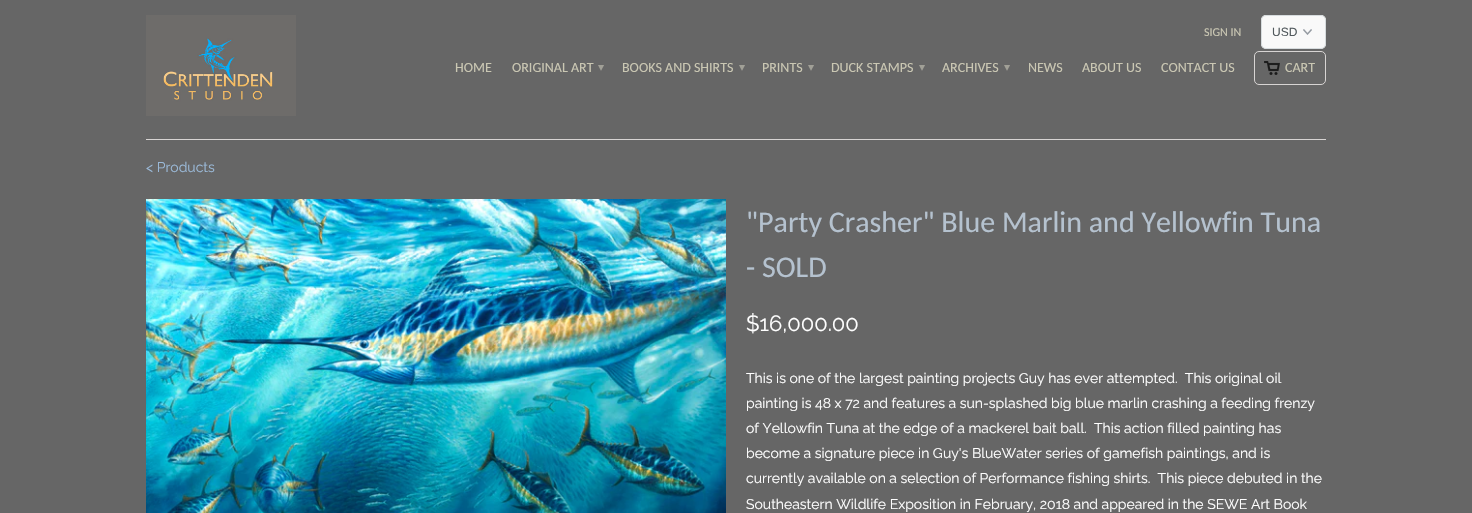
void draw(SkCanvas* canvas) {
    SkPaint paint;
    paint.setAntiAlias(true);
    canvas->clear(0xFF666666);
    paint.setColor(0xFFD7D4D3);
    canvas->drawRect(SkRect::MakeXYWH(146, 139, 1180, 1), paint);
    canvas->drawImageRect(SkImages::DeferredFromEncodedData(SkData::MakeFromFileName("img1.png")), SkRect::MakeXYWH(146, 15, 150, 101), SkSamplingOptions());
    SkFont font1(fontMgr->matchFamilyStyle("Carlito", SkFontStyle::Normal()), 12);
    font1.setSubpixel(true);
    paint.setColor(0xFFCAC7B3);
    canvas->drawString("SIGN IN", 1204, 36, font1, paint);
    paint.setColor(0xFFF9F9F9);
    canvas->drawRoundRect(SkRect::MakeXYWH(1261, 15, 65, 34), 5, 5, paint);
    canvas->drawImageRect(SkImages::DeferredFromEncodedData(SkData::MakeFromFileName("img2.png")), SkRect::MakeXYWH(1303, 29, 9, 6), SkSamplingOptions());
    paint.setStyle(SkPaint::kStroke_Style);
    paint.setStrokeWidth(1);
    paint.setColor(0xFFD7DCDE);
    canvas->drawRoundRect(SkRect::MakeXYWH(1261.5f, 15.5f, 64, 33), 4.5f, 4.5f, paint);
    SkFont font2(fontMgr->matchFamilyStyle("Liberation Sans", SkFontStyle::Normal()), 12);
    font2.setSubpixel(true);
    paint.setStyle(SkPaint::kFill_Style);
    paint.setColor(0xFF51595D);
    canvas->drawString("USD", 1272, 36, font2, paint);
    SkFont font3(fontMgr->matchFamilyStyle("Carlito", SkFontStyle::Normal()), 14);
    font3.setSubpixel(true);
    paint.setColor(0xFFCAC7B3);
    canvas->drawString("HOME", 455, 72, font3, paint);
    canvas->drawString("ORIGINAL ART", 512, 72, font3, paint);
    SkFont font4(fontMgr->matchFamilyStyle("DejaVu Sans", SkFontStyle::Normal()), 12);
    font4.setSubpixel(true);
    paint.setColor(0xFFA1A097);
    canvas->drawString("▾", 598, 71, font4, paint);
    paint.setColor(0xFFCAC7B3);
    canvas->drawString("BOOKS AND SHIRTS", 622, 72, font3, paint);
    paint.setColor(0xFFA1A097);
    canvas->drawString("▾", 739, 71, font4, paint);
    paint.setColor(0xFFCAC7B3);
    canvas->drawString("PRINTS", 762, 72, font3, paint);
    paint.setColor(0xFFA1A097);
    canvas->drawString("▾", 808, 71, font4, paint);
    paint.setColor(0xFFCAC7B3);
    canvas->drawString("DUCK STAMPS", 831, 72, font3, paint);
    paint.setColor(0xFFA1A097);
    canvas->drawString("▾", 919, 71, font4, paint);
    paint.setColor(0xFFCAC7B3);
    canvas->drawString("ARCHIVES", 942, 72, font3, paint);
    paint.setColor(0xFFA1A097);
    canvas->drawString("▾", 1004, 71, font4, paint);
    paint.setColor(0xFFCAC7B3);
    canvas->drawString("NEWS", 1028, 72, font3, paint);
    canvas->drawString("ABOUT US", 1082, 72, font3, paint);
    canvas->drawString("CONTACT US", 1161, 72, font3, paint);
    canvas->drawImageRect(SkImages::DeferredFromEncodedData(SkData::MakeFromFileName("img3.png")), SkRect::MakeXYWH(1264, 61, 16, 14), SkSamplingOptions());
    paint.setStyle(SkPaint::kStroke_Style);
    paint.setColor(0xFFD7D4D3);
    canvas->drawRoundRect(SkRect::MakeXYWH(1254.5f, 51.5f, 71, 33), 4.5f, 4.5f, paint);
    paint.setStyle(SkPaint::kFill_Style);
    paint.setColor(0xFFCAC7B3);
    canvas->drawString("CART", 1285, 72, font3, paint);
    SkFont font5(fontMgr->matchFamilyStyle("Raleway", SkFontStyle::Normal()), 14);
    font5.setSubpixel(true);
    paint.setColor(0xFF9BBAD9);
    canvas->drawString("< Products", 146, 172, font5, paint);
    canvas->drawImageRect(SkImages::DeferredFromEncodedData(SkData::MakeFromFileName("img4.png")), SkRect::MakeXYWH(146, 199, 580, 314), SkSamplingOptions());
    SkFont font6(fontMgr->matchFamilyStyle("Carlito", SkFontStyle::Normal()), 30);
    font6.setSubpixel(true);
    paint.setColor(0xFFB5C2CF);
    canvas->drawString("\"Party Crasher\" Blue Marlin and Yellowfin Tuna", 746, 232, font6, paint);
    canvas->drawString("- SOLD", 746, 277, font6, paint);
    SkFont font7(fontMgr->matchFamilyStyle("Raleway", SkFontStyle::Normal()), 22);
    font7.setSubpixel(true);
    paint.setColor(0xFFFFFFFF);
    canvas->drawString("$16,000.00", 746, 331, font7, paint);
    canvas->drawString("This is one of the largest painting projects Guy has ever attempted.  This original oil", 746, 383, font5, paint);
    canvas->drawString("painting is 48 x 72 and features a sun-splashed big blue marlin crashing a feeding frenzy", 746, 408, font5, paint);
    canvas->drawString("of Yellowfin Tuna at the edge of a mackerel bait ball.  This action filled painting has", 746, 433, font5, paint);
    canvas->drawString("become a signature piece in Guy's BlueWater series of gamefish paintings, and is", 746, 458, font5, paint);
    canvas->drawString("currently available on a selection of Performance fishing shirts.  This piece debuted in the", 746, 483, font5, paint);
    canvas->drawString("Southeastern Wildlife Exposition in February, 2018 and appeared in the SEWE Art Book", 746, 509, font5, paint);
}
